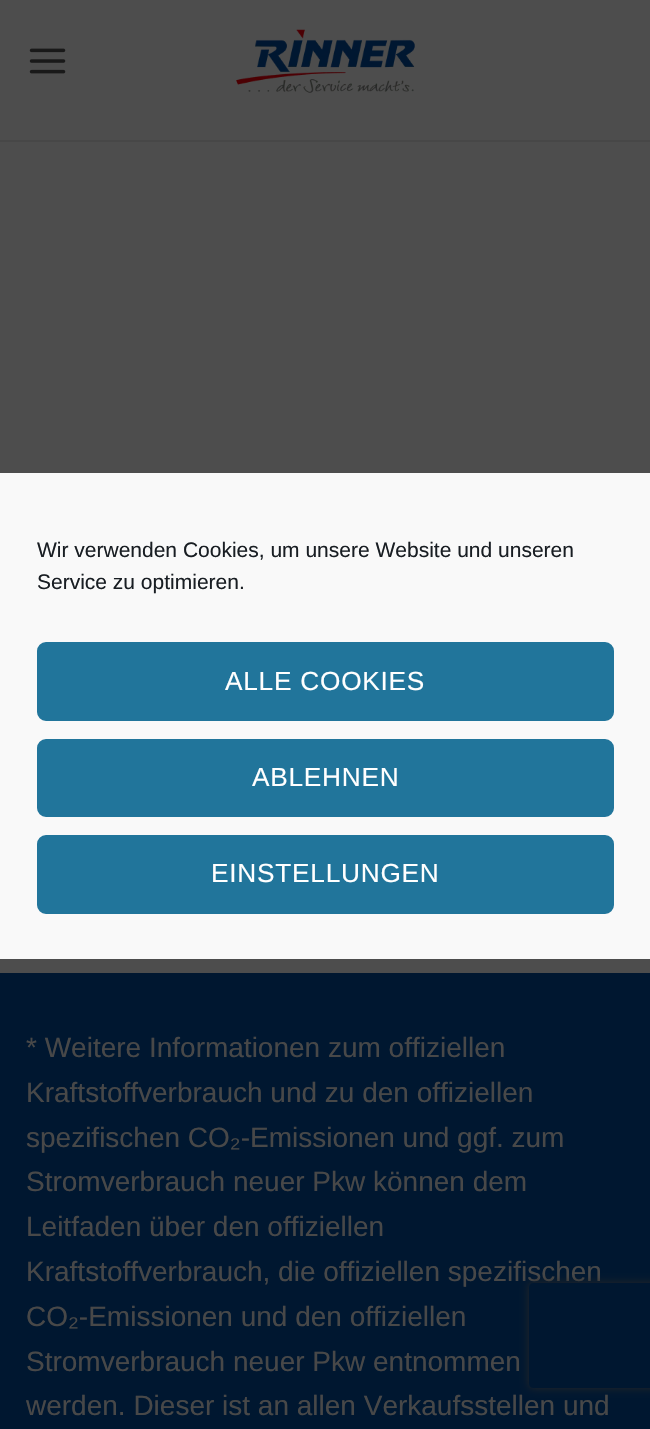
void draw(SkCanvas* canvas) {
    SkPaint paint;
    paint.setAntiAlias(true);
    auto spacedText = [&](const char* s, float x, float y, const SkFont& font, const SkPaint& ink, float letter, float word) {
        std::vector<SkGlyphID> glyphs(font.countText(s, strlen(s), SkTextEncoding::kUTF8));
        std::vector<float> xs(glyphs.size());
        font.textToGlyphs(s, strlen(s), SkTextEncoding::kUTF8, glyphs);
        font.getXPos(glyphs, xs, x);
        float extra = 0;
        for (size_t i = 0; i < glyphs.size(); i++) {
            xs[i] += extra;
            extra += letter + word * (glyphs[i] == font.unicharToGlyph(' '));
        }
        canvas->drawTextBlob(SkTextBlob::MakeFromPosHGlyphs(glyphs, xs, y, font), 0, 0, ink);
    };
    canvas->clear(0xFF4D4D4D);
    paint.setColor(0xFFF9F9F9);
    canvas->drawRect(SkRect::MakeXYWH(0, 473, 650, 486), paint);
    SkFont font1(fontMgr->matchFamilyStyle("Liberation Sans", SkFontStyle::Normal()), 21);
    font1.setSubpixel(true);
    paint.setColor(0xFF191E23);
    canvas->drawString("Wir verwenden Cookies, um unsere Website und unseren", 37, 557, font1, paint);
    canvas->drawString("Service zu optimieren.", 37, 589, font1, paint);
    paint.setColor(0xFF21759B);
    canvas->drawRoundRect(SkRect::MakeXYWH(38, 643, 575, 77), 8, 8, paint);
    paint.setStyle(SkPaint::kStroke_Style);
    paint.setStrokeWidth(2);
    canvas->drawRoundRect(SkRect::MakeXYWH(38, 643, 575, 77), 8, 8, paint);
    SkFont font2(fontMgr->matchFamilyStyle("Liberation Sans", SkFontStyle::Normal()), 26.25f);
    font2.setSubpixel(true);
    paint.setStyle(SkPaint::kFill_Style);
    paint.setColor(0xFFFFFFFF);
    spacedText("ALLE COOKIES", 225, 690, font2, paint, 0.75f, 0);
    paint.setColor(0xFF21759B);
    canvas->drawRoundRect(SkRect::MakeXYWH(38, 740, 575, 76), 8, 8, paint);
    paint.setStyle(SkPaint::kStroke_Style);
    canvas->drawRoundRect(SkRect::MakeXYWH(38, 740, 575, 76), 8, 8, paint);
    paint.setStyle(SkPaint::kFill_Style);
    paint.setColor(0xFFFFFFFF);
    spacedText("ABLEHNEN", 252, 786, font2, paint, 0.75f, 0);
    paint.setColor(0xFF21759B);
    canvas->drawRoundRect(SkRect::MakeXYWH(38, 836, 575, 77), 8, 8, paint);
    paint.setStyle(SkPaint::kStroke_Style);
    canvas->drawRoundRect(SkRect::MakeXYWH(38, 836, 575, 77), 8, 8, paint);
    paint.setStyle(SkPaint::kFill_Style);
    paint.setColor(0xFFFFFFFF);
    spacedText("EINSTELLUNGEN", 211, 882, font2, paint, 0.75f, 0);
    paint.setColor(0xFF474747);
    canvas->drawRect(SkRect::MakeXYWH(0, 140, 650, 2), paint);
    canvas->drawImageRect(SkImages::DeferredFromEncodedData(SkData::MakeFromFileName("img1.png")), SkRect::MakeXYWH(29, 48, 37, 26), SkSamplingOptions());
    canvas->drawImageRect(SkImages::DeferredFromEncodedData(SkData::MakeFromFileName("img2.png")), SkRect::MakeXYWH(236, 29, 179, 64), SkSamplingOptions());
    paint.setColor(0xFF001730);
    canvas->drawRect(SkRect::MakeXYWH(0, 973, 650, 456), paint);
    SkFont font3(fontMgr->matchFamilyStyle("Liberation Sans", SkFontStyle::Normal()), 28);
    font3.setSubpixel(true);
    paint.setColor(0xFF484848);
    canvas->drawString("* Weitere Informationen zum offiziellen", 26, 1057, font3, paint);
    canvas->drawString("Kraftstoffverbrauch und zu den offiziellen", 26, 1102, font3, paint);
    canvas->drawString("spezifischen CO₂-Emissionen und ggf. zum", 26, 1147, font3, paint);
    canvas->drawString("Stromverbrauch neuer Pkw können dem", 26, 1191, font3, paint);
    canvas->drawString("Leitfaden über den offiziellen", 26, 1236, font3, paint);
    canvas->drawString("Kraftstoffverbrauch, die offiziellen spezifischen", 26, 1281, font3, paint);
    canvas->drawString("CO₂-Emissionen und den offiziellen", 26, 1326, font3, paint);
    canvas->drawString("Stromverbrauch neuer Pkw entnommen", 26, 1371, font3, paint);
    canvas->drawString("werden. Dieser ist an allen Verkaufsstellen und", 26, 1415, font3, paint);
    canvas->save();
    canvas->clipPath(SkPathBuilder(SkPathFillType::kEvenOdd).moveTo(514, 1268).lineTo(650, 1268).lineTo(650, 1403).lineTo(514, 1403).close().moveTo(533, 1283).lineTo(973, 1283).cubicTo(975, 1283, 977, 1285, 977, 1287).lineTo(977, 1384).cubicTo(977, 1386, 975, 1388, 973, 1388).lineTo(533, 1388).cubicTo(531, 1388, 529, 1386, 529, 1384).lineTo(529, 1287).cubicTo(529, 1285, 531, 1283, 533, 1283).close().detach(), true);
    paint.setColor(0xFF262626);
    paint.setMaskFilter(SkMaskFilter::MakeBlur(kNormal_SkBlurStyle, 4.5f));
    canvas->drawRoundRect(SkRect::MakeXYWH(529, 1283, 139, 105), 4, 4, paint);
    paint.setMaskFilter(nullptr);
    canvas->restore();
}
